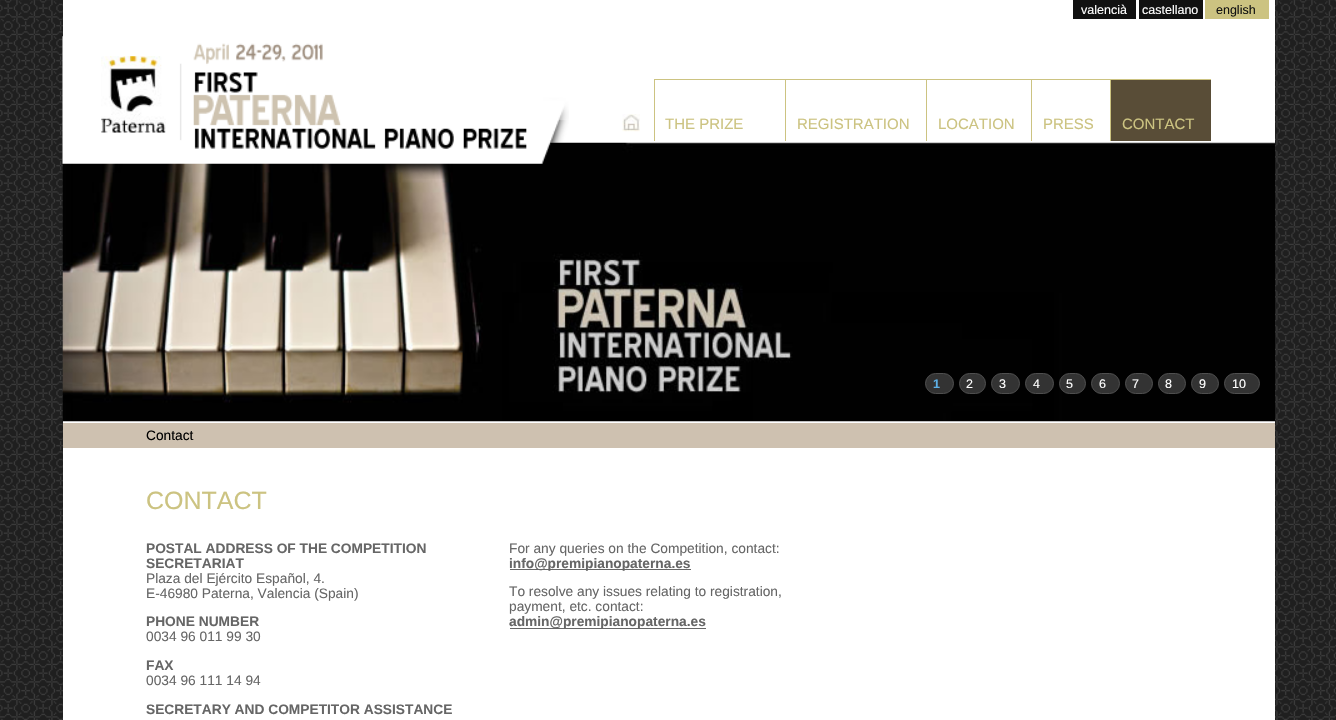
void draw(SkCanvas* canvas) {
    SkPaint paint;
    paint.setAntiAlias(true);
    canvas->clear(0xFFFFFFFF);
    canvas->drawImageRect(SkImages::DeferredFromEncodedData(SkData::MakeFromFileName("img1.png")), SkRect::MakeXYWH(0, 0, 1336, 720), SkSamplingOptions());
    paint.setColor(0xFFFFFFFF);
    canvas->drawRect(SkRect::MakeXYWH(63, 0, 1212, 143), paint);
    paint.setColor(0xFF111111);
    canvas->drawRect(SkRect::MakeXYWH(1073, 0, 63, 19), paint);
    SkFont font1(fontMgr->matchFamilyStyle("Liberation Sans", SkFontStyle::Normal()), 12.5f);
    font1.setSubpixel(true);
    paint.setColor(0xFFFFFFFF);
    canvas->drawString("valencià", 1081, 14, font1, paint);
    paint.setColor(0xFF111111);
    canvas->drawRect(SkRect::MakeXYWH(1139, 0, 64, 19), paint);
    paint.setColor(0xFFFFFFFF);
    canvas->drawString("castellano", 1142, 14, font1, paint);
    paint.setColor(0xFFCCC381);
    canvas->drawRect(SkRect::MakeXYWH(1205, 0, 64, 19), paint);
    paint.setColor(0xFF111111);
    canvas->drawString("english", 1216, 14, font1, paint);
    paint.setColor(0xFFFFFFFF);
    canvas->drawRect(SkRect::MakeXYWH(63, 421, 1212, 299), paint);
    canvas->drawImageRect(SkImages::DeferredFromEncodedData(SkData::MakeFromFileName("img5.png")), SkRect::MakeXYWH(62, 142, 1213, 280), SkSamplingOptions());
    canvas->drawImageRect(SkImages::DeferredFromEncodedData(SkData::MakeFromFileName("img2.png")), SkRect::MakeXYWH(62, 36, 507, 143), SkSamplingOptions());
    canvas->drawImageRect(SkImages::DeferredFromEncodedData(SkData::MakeFromFileName("img3.png")), SkRect::MakeXYWH(101, 56, 65, 77), SkSamplingOptions());
    canvas->drawImageRect(SkImages::DeferredFromEncodedData(SkData::MakeFromFileName("img4.png")), SkRect::MakeXYWH(622, 114, 18, 18), SkSamplingOptions());
    paint.setColor(0xFFCCC381);
    canvas->drawRect(SkRect::MakeXYWH(654, 79, 557, 1), paint);
    canvas->drawRect(SkRect::MakeXYWH(654, 79, 1, 62), paint);
    SkFont font2(fontMgr->matchFamilyStyle("Liberation Sans", SkFontStyle::Normal()), 15);
    font2.setSubpixel(true);
    canvas->drawString("THE PRIZE", 665, 129, font2, paint);
    canvas->drawRect(SkRect::MakeXYWH(785, 79, 1, 62), paint);
    canvas->drawString("REGISTRATION", 797, 129, font2, paint);
    canvas->drawRect(SkRect::MakeXYWH(926, 79, 1, 62), paint);
    canvas->drawString("LOCATION", 938, 129, font2, paint);
    canvas->drawRect(SkRect::MakeXYWH(1031, 79, 1, 62), paint);
    canvas->drawString("PRESS", 1043, 129, font2, paint);
    paint.setColor(0xFF594D37);
    canvas->drawRect(SkRect::MakeXYWH(1111, 80, 100, 61), paint);
    paint.setColor(0xFFCCC381);
    canvas->drawRect(SkRect::MakeXYWH(1110, 79, 1, 62), paint);
    canvas->drawString("CONTACT", 1122, 129, font2, paint);
    paint.setColor(0xFF333333);
    canvas->drawRoundRect(SkRect::MakeXYWH(925.5f, 373.5f, 28, 20), 10, 10, paint);
    paint.setStyle(SkPaint::kStroke_Style);
    paint.setStrokeWidth(1);
    paint.setColor(0xFF4F4F4F);
    canvas->drawRoundRect(SkRect::MakeXYWH(925.5f, 373.5f, 28, 20), 10, 10, paint);
    SkFont font3(fontMgr->matchFamilyStyle("Liberation Sans", SkFontStyle::Bold()), 12.5f);
    font3.setSubpixel(true);
    paint.setStyle(SkPaint::kFill_Style);
    paint.setColor(0xFF5DB0E6);
    canvas->drawString("1", 933, 388, font3, paint);
    paint.setColor(0xFF333333);
    canvas->drawRoundRect(SkRect::MakeXYWH(959.5f, 373.5f, 26, 20), 10, 10, paint);
    paint.setStyle(SkPaint::kStroke_Style);
    paint.setColor(0xFF4F4F4F);
    canvas->drawRoundRect(SkRect::MakeXYWH(959.5f, 373.5f, 26, 20), 10, 10, paint);
    paint.setStyle(SkPaint::kFill_Style);
    paint.setColor(0xFFFFFFFF);
    canvas->drawString("2", 966, 388, font1, paint);
    paint.setColor(0xFF333333);
    canvas->drawRoundRect(SkRect::MakeXYWH(991.5f, 373.5f, 28, 20), 10, 10, paint);
    paint.setStyle(SkPaint::kStroke_Style);
    paint.setColor(0xFF4F4F4F);
    canvas->drawRoundRect(SkRect::MakeXYWH(991.5f, 373.5f, 28, 20), 10, 10, paint);
    paint.setStyle(SkPaint::kFill_Style);
    paint.setColor(0xFFFFFFFF);
    canvas->drawString("3", 999, 388, font1, paint);
    paint.setColor(0xFF333333);
    canvas->drawRoundRect(SkRect::MakeXYWH(1025.5f, 373.5f, 28, 20), 10, 10, paint);
    paint.setStyle(SkPaint::kStroke_Style);
    paint.setColor(0xFF4F4F4F);
    canvas->drawRoundRect(SkRect::MakeXYWH(1025.5f, 373.5f, 28, 20), 10, 10, paint);
    paint.setStyle(SkPaint::kFill_Style);
    paint.setColor(0xFFFFFFFF);
    canvas->drawString("4", 1033, 388, font1, paint);
    paint.setColor(0xFF333333);
    canvas->drawRoundRect(SkRect::MakeXYWH(1059.5f, 373.5f, 26, 20), 10, 10, paint);
    paint.setStyle(SkPaint::kStroke_Style);
    paint.setColor(0xFF4F4F4F);
    canvas->drawRoundRect(SkRect::MakeXYWH(1059.5f, 373.5f, 26, 20), 10, 10, paint);
    paint.setStyle(SkPaint::kFill_Style);
    paint.setColor(0xFFFFFFFF);
    canvas->drawString("5", 1066, 388, font1, paint);
    paint.setColor(0xFF333333);
    canvas->drawRoundRect(SkRect::MakeXYWH(1091.5f, 373.5f, 28, 20), 10, 10, paint);
    paint.setStyle(SkPaint::kStroke_Style);
    paint.setColor(0xFF4F4F4F);
    canvas->drawRoundRect(SkRect::MakeXYWH(1091.5f, 373.5f, 28, 20), 10, 10, paint);
    paint.setStyle(SkPaint::kFill_Style);
    paint.setColor(0xFFFFFFFF);
    canvas->drawString("6", 1099, 388, font1, paint);
    paint.setColor(0xFF333333);
    canvas->drawRoundRect(SkRect::MakeXYWH(1125.5f, 373.5f, 27, 20), 10, 10, paint);
    paint.setStyle(SkPaint::kStroke_Style);
    paint.setColor(0xFF4F4F4F);
    canvas->drawRoundRect(SkRect::MakeXYWH(1125.5f, 373.5f, 27, 20), 10, 10, paint);
    paint.setStyle(SkPaint::kFill_Style);
    paint.setColor(0xFFFFFFFF);
    canvas->drawString("7", 1132, 388, font1, paint);
    paint.setColor(0xFF333333);
    canvas->drawRoundRect(SkRect::MakeXYWH(1158.5f, 373.5f, 27, 20), 10, 10, paint);
    paint.setStyle(SkPaint::kStroke_Style);
    paint.setColor(0xFF4F4F4F);
    canvas->drawRoundRect(SkRect::MakeXYWH(1158.5f, 373.5f, 27, 20), 10, 10, paint);
    paint.setStyle(SkPaint::kFill_Style);
    paint.setColor(0xFFFFFFFF);
    canvas->drawString("8", 1165, 388, font1, paint);
    paint.setColor(0xFF333333);
    canvas->drawRoundRect(SkRect::MakeXYWH(1191.5f, 373.5f, 27, 20), 10, 10, paint);
    paint.setStyle(SkPaint::kStroke_Style);
    paint.setColor(0xFF4F4F4F);
    canvas->drawRoundRect(SkRect::MakeXYWH(1191.5f, 373.5f, 27, 20), 10, 10, paint);
    paint.setStyle(SkPaint::kFill_Style);
    paint.setColor(0xFFFFFFFF);
    canvas->drawString("9", 1199, 388, font1, paint);
    paint.setColor(0xFF333333);
    canvas->drawRoundRect(SkRect::MakeXYWH(1224.5f, 373.5f, 35, 20), 10, 10, paint);
    paint.setStyle(SkPaint::kStroke_Style);
    paint.setColor(0xFF4F4F4F);
    canvas->drawRoundRect(SkRect::MakeXYWH(1224.5f, 373.5f, 35, 20), 10, 10, paint);
    paint.setStyle(SkPaint::kFill_Style);
    paint.setColor(0xFFFFFFFF);
    canvas->drawString("10", 1232, 388, font1, paint);
    paint.setColor(0xFFCEC1B0);
    canvas->drawRect(SkRect::MakeXYWH(63, 423, 1212, 25), paint);
    SkFont font4(fontMgr->matchFamilyStyle("Liberation Sans", SkFontStyle::Normal()), 13.75f);
    font4.setSubpixel(true);
    paint.setColor(0xFF000000);
    canvas->drawString("Contact", 146, 440, font4, paint);
    SkFont font5(fontMgr->matchFamilyStyle("Liberation Sans", SkFontStyle::Normal()), 25);
    font5.setSubpixel(true);
    paint.setColor(0xFFCCC381);
    canvas->drawString("CONTACT", 146, 509, font5, paint);
    SkFont font6(fontMgr->matchFamilyStyle("Liberation Sans", SkFontStyle::Bold()), 13.75f);
    font6.setSubpixel(true);
    paint.setColor(0xFF666666);
    canvas->drawString("POSTAL ADDRESS OF THE COMPETITION", 146, 553, font6, paint);
    canvas->drawString("SECRETARIAT", 146, 568, font6, paint);
    canvas->drawString("Plaza del Ejército Español, 4.", 146, 583, font4, paint);
    canvas->drawString("E-46980 Paterna, Valencia (Spain)", 146, 598, font4, paint);
    canvas->drawString("PHONE NUMBER", 146, 626, font6, paint);
    canvas->drawString("0034 96 011 99 30", 146, 641, font4, paint);
    canvas->drawString("FAX", 146, 670, font6, paint);
    canvas->drawString("0034 96 111 14 94", 146, 685, font4, paint);
    canvas->drawString("SECRETARY AND COMPETITOR ASSISTANCE", 146, 714, font6, paint);
    canvas->drawString("For any queries on the Competition, contact:", 509, 553, font4, paint);
    canvas->drawRect(SkRect::MakeXYWH(510, 569, 181, 1), paint);
    canvas->drawString("info@premipianopaterna.es", 509, 568, font6, paint);
    canvas->drawString("To resolve any issues relating to registration,", 509, 596, font4, paint);
    canvas->drawString("payment, etc. contact:", 509, 611, font4, paint);
    canvas->drawRect(SkRect::MakeXYWH(510, 628, 196, 1), paint);
    canvas->drawString("admin@premipianopaterna.es", 509, 626, font6, paint);
}
